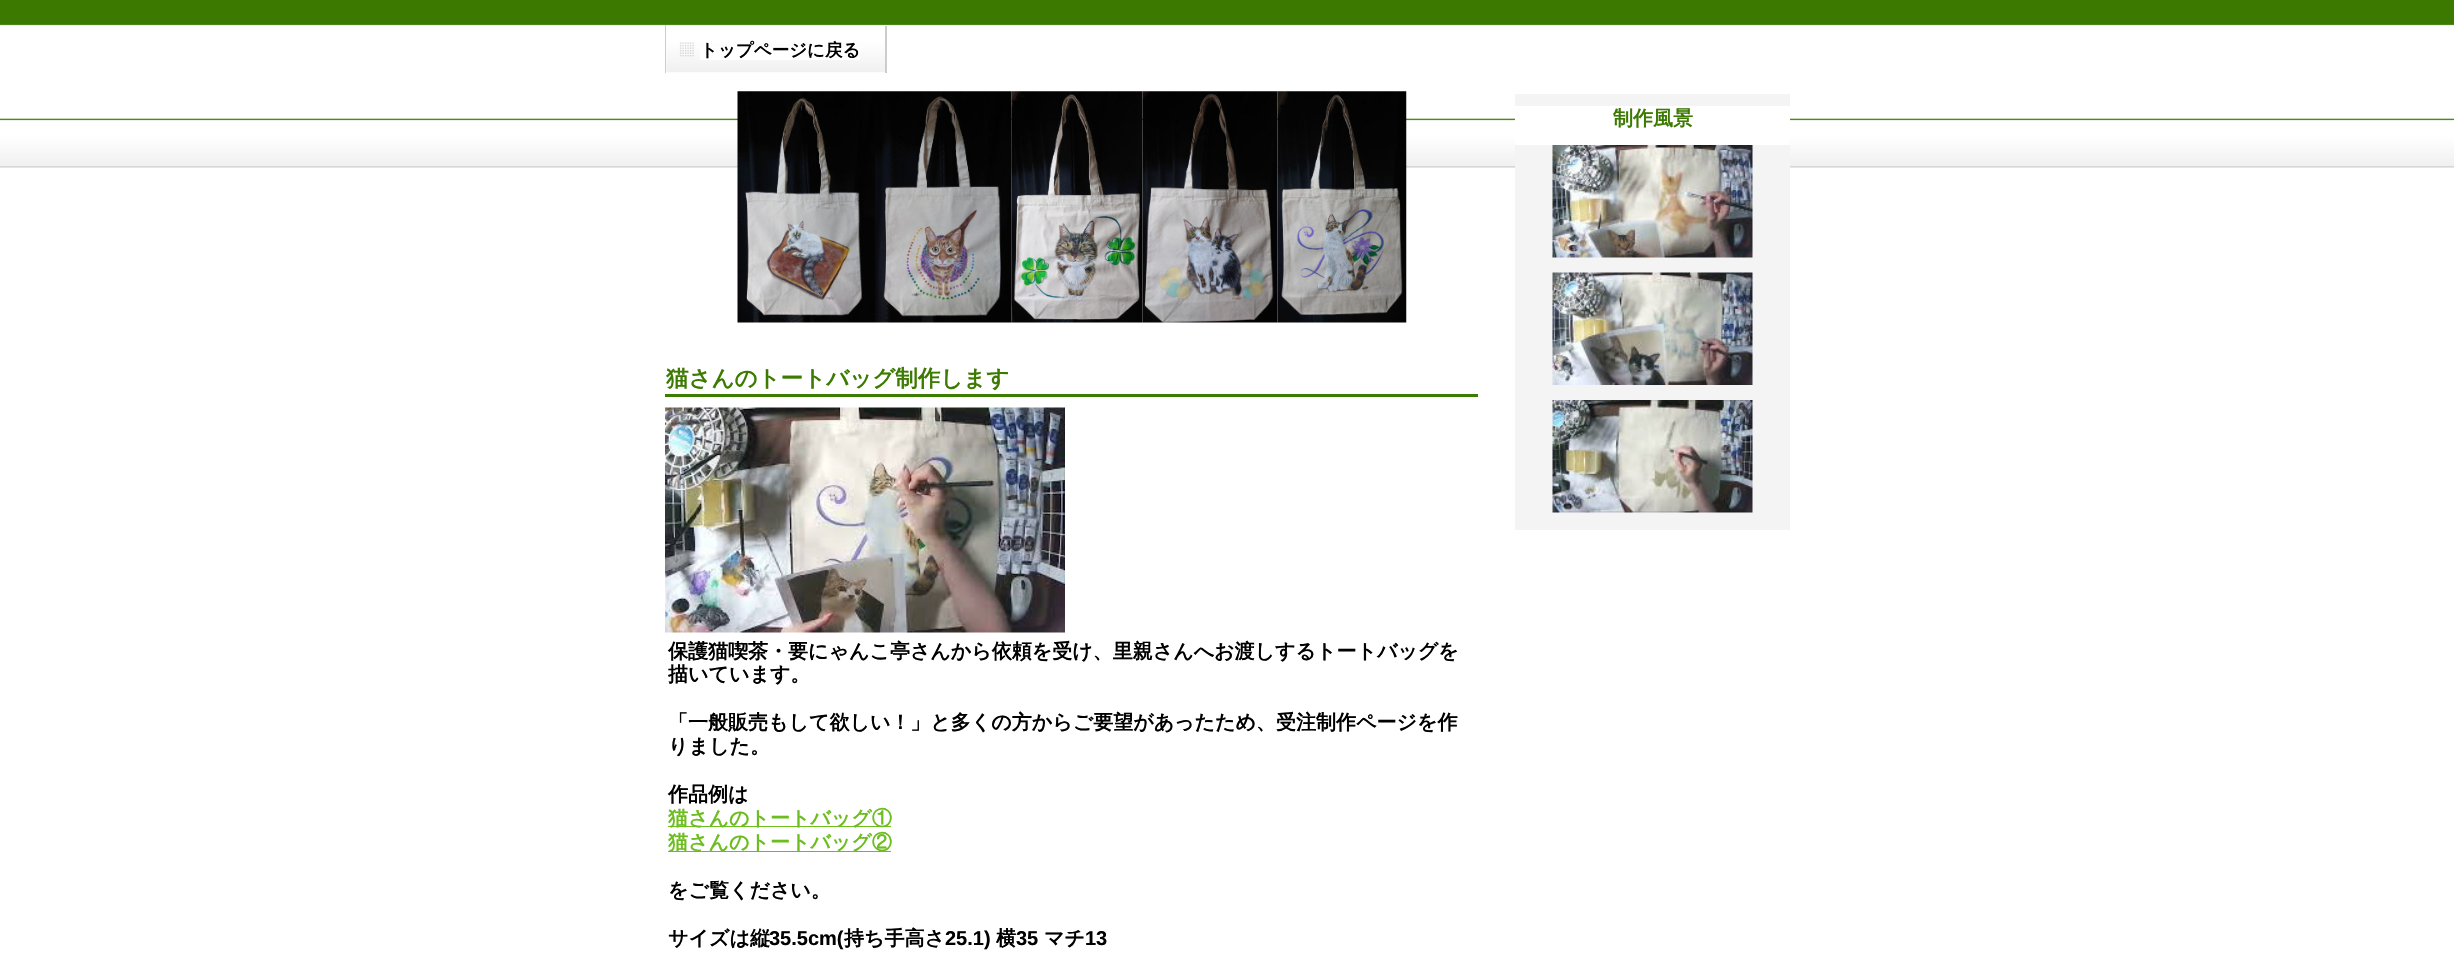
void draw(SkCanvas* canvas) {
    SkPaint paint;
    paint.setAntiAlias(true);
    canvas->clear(0xFFFFFFFF);
    canvas->drawImageRect(SkImages::DeferredFromEncodedData(SkData::MakeFromFileName("img1.png")), SkRect::MakeXYWH(0, 0, 2454, 168), SkSamplingOptions());
    paint.setColor(0xFFCCCCCC);
    canvas->drawRect(SkRect::MakeXYWH(665, 25, 1, 48), paint);
    canvas->drawRect(SkRect::MakeXYWH(885, 26, 2, 47), paint);
    canvas->drawImageRect(SkImages::DeferredFromEncodedData(SkData::MakeFromFileName("img2.png")), SkRect::MakeXYWH(666, 42, 219, 31), SkSamplingOptions());
    paint.setColor(0xFFFFFFFF);
    canvas->drawRect(SkRect::MakeXYWH(700, 47, 160, 13), paint);
    SkFont font1(fontMgr->matchFamilyStyle("WenQuanYi Zen Hei", SkFontStyle::Bold()), 17.5f);
    font1.setSubpixel(true);
    paint.setColor(0xFF000000);
    canvas->drawString("トップページに戻る", 700, 56, font1, paint);
    paint.setColor(0xFFF4F4F4);
    canvas->drawRect(SkRect::MakeXYWH(1515, 94, 275, 436), paint);
    paint.setColor(0xFFFFFFFF);
    canvas->drawRect(SkRect::MakeXYWH(1515, 106, 275, 39), paint);
    SkFont font2(fontMgr->matchFamilyStyle("WenQuanYi Zen Hei", SkFontStyle::Bold()), 20);
    font2.setSubpixel(true);
    paint.setColor(0xFF3C7A01);
    canvas->drawString("制作風景", 1613, 125, font2, paint);
    canvas->drawImageRect(SkImages::DeferredFromEncodedData(SkData::MakeFromFileName("img3.png")), SkRect::MakeXYWH(1552, 145, 201, 113), SkSamplingOptions());
    canvas->drawImageRect(SkImages::DeferredFromEncodedData(SkData::MakeFromFileName("img4.png")), SkRect::MakeXYWH(1552, 272, 201, 113), SkSamplingOptions());
    canvas->drawImageRect(SkImages::DeferredFromEncodedData(SkData::MakeFromFileName("img5.png")), SkRect::MakeXYWH(1552, 400, 201, 113), SkSamplingOptions());
    canvas->drawImageRect(SkImages::DeferredFromEncodedData(SkData::MakeFromFileName("img6.png")), SkRect::MakeXYWH(737, 91, 138, 232), SkSamplingOptions());
    canvas->drawImageRect(SkImages::DeferredFromEncodedData(SkData::MakeFromFileName("img7.png")), SkRect::MakeXYWH(875, 91, 137, 232), SkSamplingOptions());
    canvas->drawImageRect(SkImages::DeferredFromEncodedData(SkData::MakeFromFileName("img8.png")), SkRect::MakeXYWH(1011, 91, 132, 232), SkSamplingOptions());
    canvas->drawImageRect(SkImages::DeferredFromEncodedData(SkData::MakeFromFileName("img9.png")), SkRect::MakeXYWH(1142, 91, 136, 232), SkSamplingOptions());
    canvas->drawImageRect(SkImages::DeferredFromEncodedData(SkData::MakeFromFileName("img10.png")), SkRect::MakeXYWH(1277, 91, 130, 232), SkSamplingOptions());
    paint.setColor(0xFF3C7C00);
    canvas->drawRect(SkRect::MakeXYWH(665, 394, 813, 3), paint);
    SkFont font3(fontMgr->matchFamilyStyle("WenQuanYi Zen Hei", SkFontStyle::Bold()), 22.5f);
    font3.setSubpixel(true);
    paint.setColor(0xFF3C7A01);
    canvas->drawString("猫さんのトートバッグ制作します", 666, 386, font3, paint);
    canvas->drawImageRect(SkImages::DeferredFromEncodedData(SkData::MakeFromFileName("img11.png")), SkRect::MakeXYWH(665, 407, 400, 226), SkSamplingOptions());
    paint.setColor(0xFF000000);
    canvas->drawString("保護猫喫茶・要にゃんこ亭さんから依頼を受け、里親さんへお渡しするトートバッグを", 668, 658, font2, paint);
    canvas->drawString("描いています。", 668, 681, font2, paint);
    canvas->drawString("「一般販売もして欲しい！」と多くの方からご要望があったため、受注制作ページを作", 668, 729, font2, paint);
    canvas->drawString("りました。", 668, 753, font2, paint);
    canvas->drawString("作品例は", 668, 801, font2, paint);
    paint.setColor(0xFF6CBD1E);
    canvas->drawRect(SkRect::MakeXYWH(668, 826, 223, 1), paint);
    canvas->drawString("猫さんのトートバッグ①", 668, 825, font2, paint);
    canvas->drawRect(SkRect::MakeXYWH(668, 851, 223, 1), paint);
    canvas->drawString("猫さんのトートバッグ②", 668, 849, font2, paint);
    paint.setColor(0xFF000000);
    canvas->drawString("をご覧ください。", 668, 897, font2, paint);
    canvas->drawString("サイズは縦", 668, 945, font2, paint);
    SkFont font4(fontMgr->matchFamilyStyle("Liberation Sans", SkFontStyle::Bold()), 20);
    font4.setSubpixel(true);
    canvas->drawString("35.5cm(", 769, 945, font4, paint);
    canvas->drawString("持ち手高さ", 844, 945, font2, paint);
    canvas->drawString("25.1)", 945, 945, font4, paint);
    canvas->drawString("横", 996, 945, font2, paint);
    canvas->drawString("35", 1016, 945, font4, paint);
    canvas->drawString("マチ", 1044, 945, font2, paint);
    canvas->drawString("13", 1085, 945, font4, paint);
}
